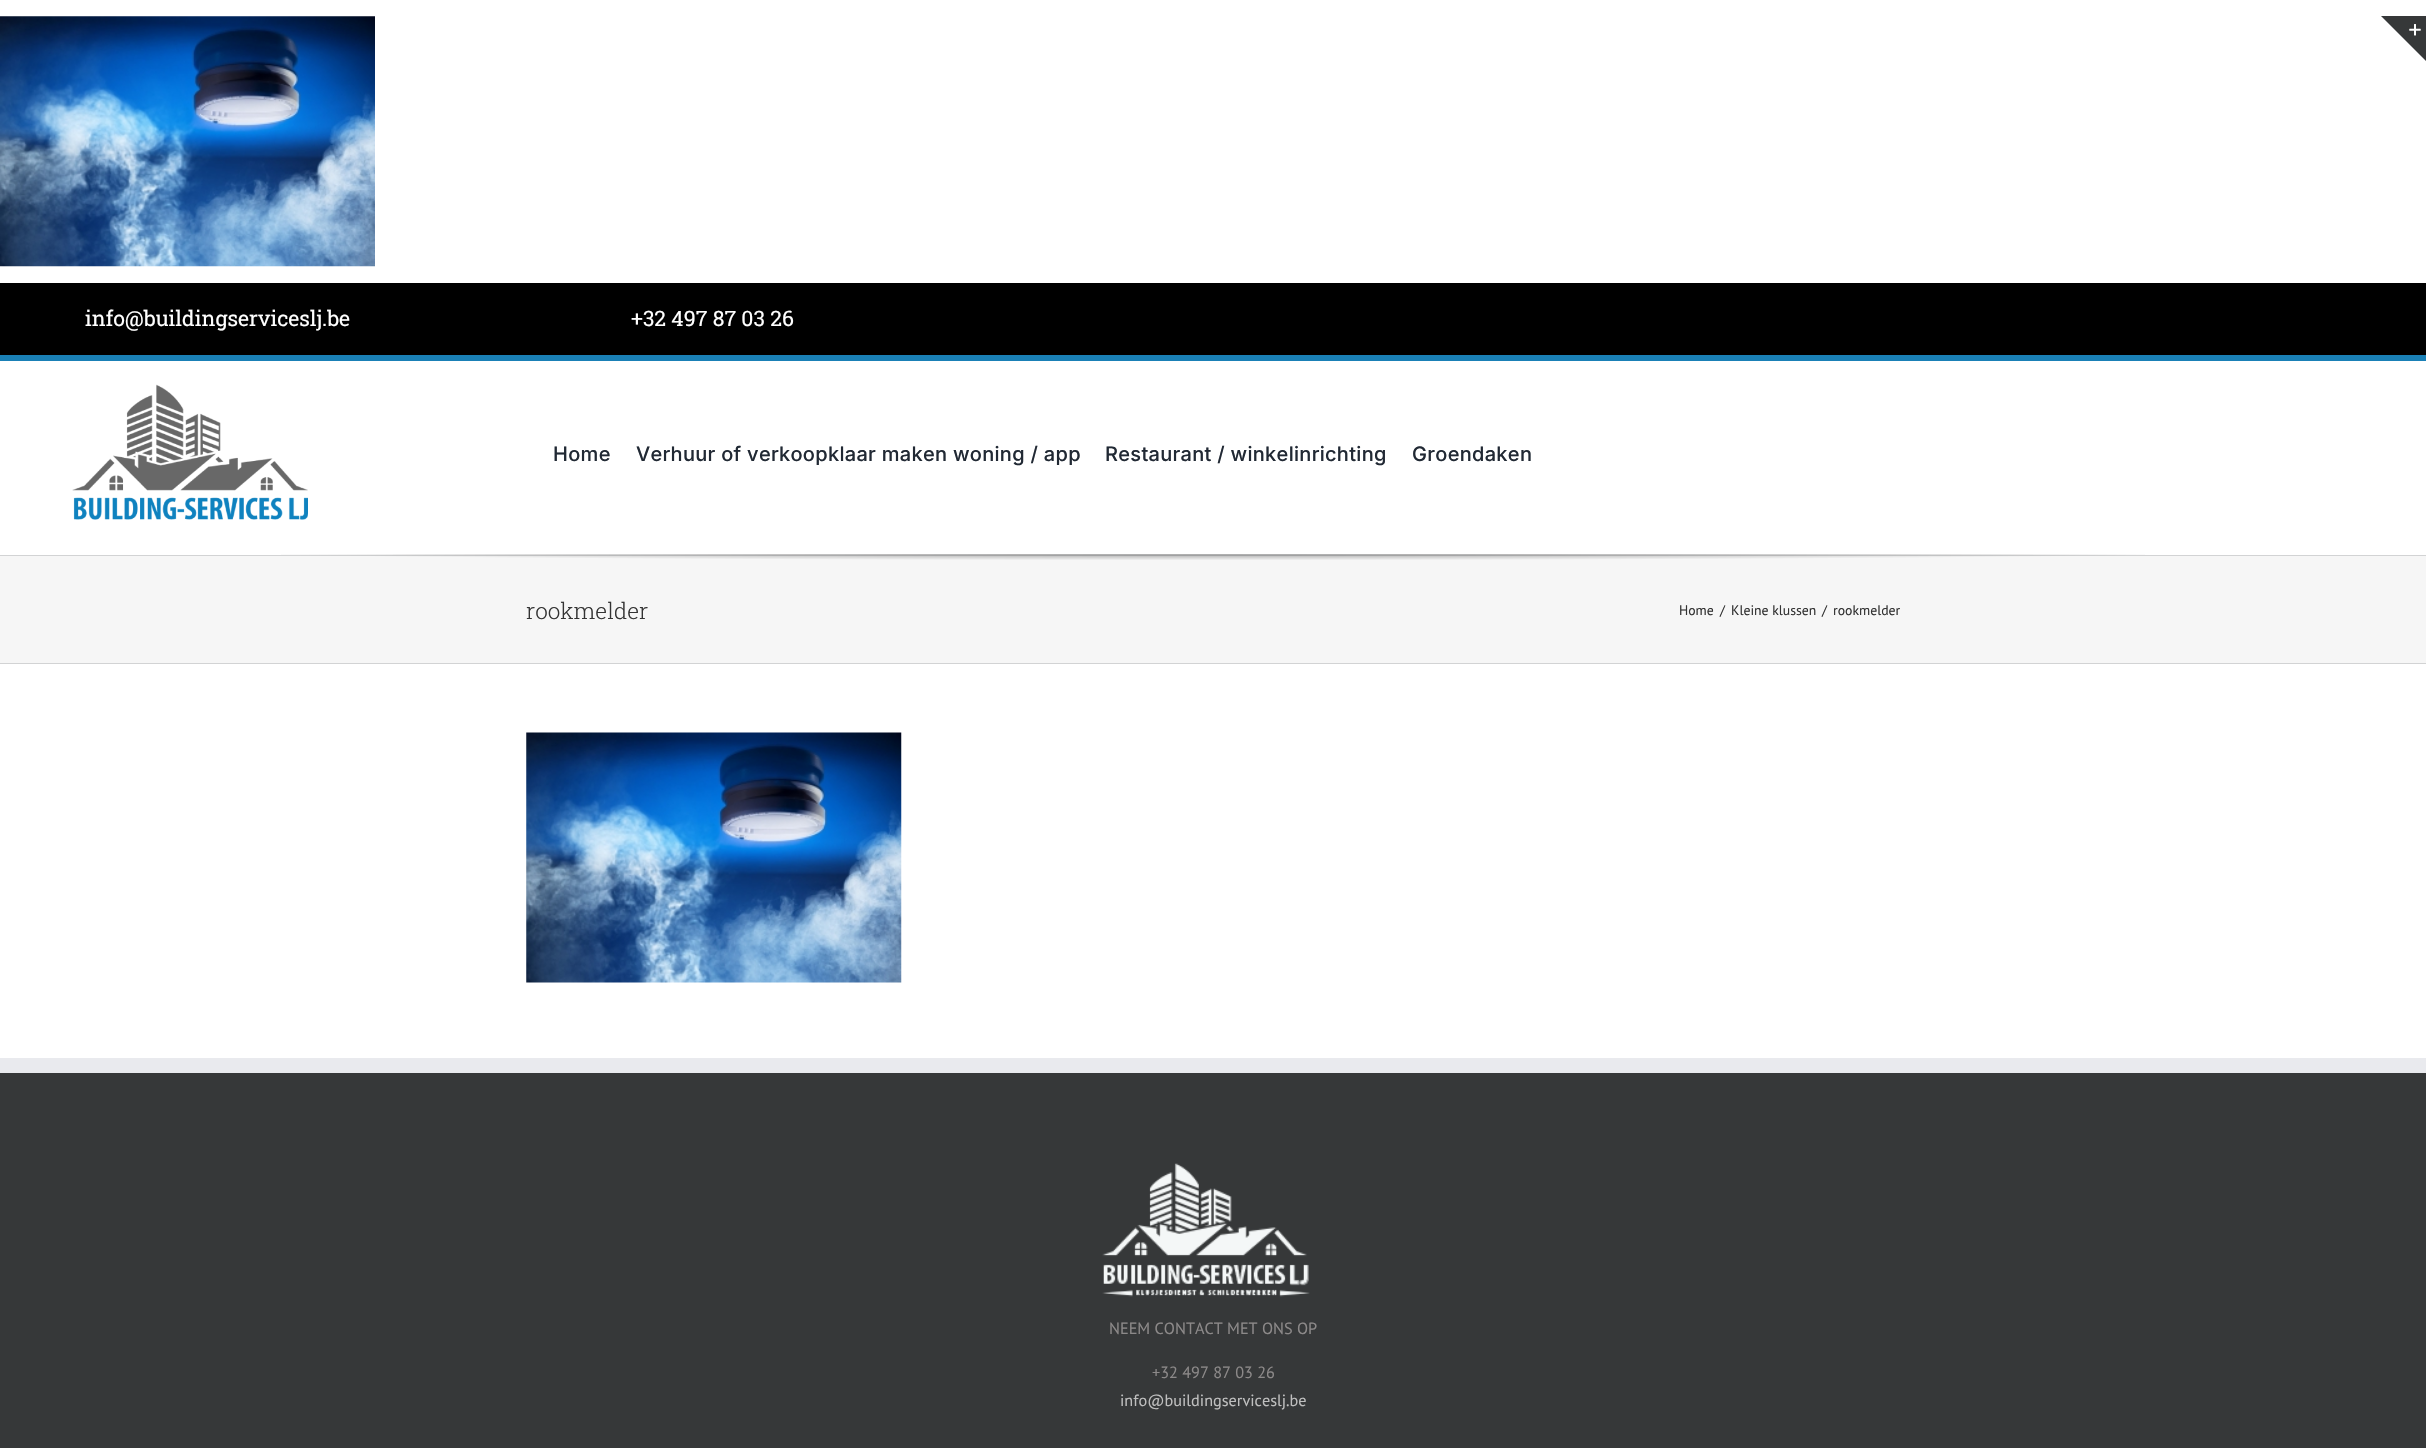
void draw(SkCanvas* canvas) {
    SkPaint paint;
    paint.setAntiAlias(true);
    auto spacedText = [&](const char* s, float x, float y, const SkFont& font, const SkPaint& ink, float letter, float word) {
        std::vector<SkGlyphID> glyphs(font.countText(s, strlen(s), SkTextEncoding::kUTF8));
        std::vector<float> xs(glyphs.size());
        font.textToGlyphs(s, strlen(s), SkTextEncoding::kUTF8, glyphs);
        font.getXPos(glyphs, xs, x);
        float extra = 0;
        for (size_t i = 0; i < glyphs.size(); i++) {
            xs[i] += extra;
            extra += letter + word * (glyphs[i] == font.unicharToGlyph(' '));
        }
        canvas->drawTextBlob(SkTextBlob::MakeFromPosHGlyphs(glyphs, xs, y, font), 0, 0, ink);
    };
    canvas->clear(0xFFFFFFFF);
    paint.setColor(0xFF363839);
    canvas->drawPath(SkPathBuilder().moveTo(2381, 16).lineTo(2426, 16).lineTo(2426, 61).close().detach(), paint);
    canvas->drawImageRect(SkImages::DeferredFromEncodedData(SkData::MakeFromFileName("img1.png")), SkRect::MakeXYWH(2409, 24, 12, 12), SkSamplingOptions());
    canvas->drawImageRect(SkImages::DeferredFromEncodedData(SkData::MakeFromFileName("img2.png")), SkRect::MakeXYWH(0, 16, 375, 251), SkSamplingOptions());
    paint.setColor(0xFF000000);
    canvas->drawRect(SkRect::MakeXYWH(0, 283, 2426, 72), paint);
    SkFont font1(fontMgr->matchFamilyStyle("Roboto Slab", SkFontStyle::Normal()), 21.25f);
    font1.setSubpixel(true);
    paint.setColor(0xFFFFFFFF);
    canvas->drawString("info@buildingserviceslj.be", 85, 326, font1, paint);
    canvas->drawString("+32 497 87 03 26", 631, 326, font1, paint);
    paint.setColor(0xFF1A80B6);
    canvas->drawRect(SkRect::MakeXYWH(0, 355, 2426, 6), paint);
    canvas->drawImageRect(SkImages::DeferredFromEncodedData(SkData::MakeFromFileName("img3.png")), SkRect::MakeXYWH(72, 384, 236, 136), SkSamplingOptions());
    SkFont font2(fontMgr->matchFamilyStyle("Inter", SkFontStyle(500, SkFontStyle::kNormal_Width, SkFontStyle::kUpright_Slant)), 20);
    font2.setSubpixel(true);
    paint.setColor(0xFF212934);
    spacedText("Home", 553, 461, font2, paint, 0.3f, 0);
    spacedText("Verhuur of verkoopklaar maken woning / app", 636, 461, font2, paint, 0.3f, 0);
    spacedText("Restaurant / winkelinrichting", 1105, 461, font2, paint, 0.3f, 0);
    spacedText("Groendaken", 1412, 461, font2, paint, 0.3f, 0);
    {
        const SkColor colors[] = {0xFFE0DEDE, 0xFFFFFFFF};
        const float stops[] = {0, 0.8f};
        SkMatrix m = SkMatrix::Translate(1213, 553).preScale(1663, 2.7f);
        paint.setShader(SkGradientShader::MakeRadial({0, 0}, 1, colors, stops, 2, SkTileMode::kClamp, 0, &m));
        paint.setAlpha(255);
    }
    canvas->drawRect(SkRect::MakeXYWH(393, 554, 1640, 1), paint);
    paint.setShader(nullptr);
    paint.setColor(0xFFF6F6F6);
    canvas->drawRect(SkRect::MakeXYWH(0, 556, 2426, 107), paint);
    paint.setColor(0xFFD2D3D4);
    canvas->drawRect(SkRect::MakeXYWH(0, 555, 2426, 1), paint);
    {
        const SkColor colors[] = {0x80000000, 0x00000000};
        const float stops[] = {0, 0.65f};
        SkMatrix m = SkMatrix::Translate(1213, 550).preScale(1663, 16);
        paint.setShader(SkGradientShader::MakeRadial({0, 0}, 1, colors, stops, 2, SkTileMode::kClamp, 0, &m));
        paint.setAlpha(255);
    }
    canvas->drawRect(SkRect::MakeXYWH(281, 554, 1864, 6), paint);
    paint.setShader(nullptr);
    paint.setColor(0xFFD2D3D4);
    canvas->drawRect(SkRect::MakeXYWH(0, 663, 2426, 1), paint);
    SkFont font3(fontMgr->matchFamilyStyle("Roboto Slab", SkFontStyle(300, SkFontStyle::kNormal_Width, SkFontStyle::kUpright_Slant)), 22.5f);
    font3.setSubpixel(true);
    paint.setColor(0xFF333333);
    canvas->drawString("rookmelder", 526, 619, font3, paint);
    SkFont font4(fontMgr->matchFamilyStyle("PT Sans", SkFontStyle::Normal()), 13.75f);
    font4.setSubpixel(true);
    canvas->drawString("Home", 1679, 615, font4, paint);
    canvas->drawString("/", 1720, 615, font4, paint);
    canvas->drawString("Kleine klussen", 1731, 615, font4, paint);
    canvas->drawString("/", 1822, 615, font4, paint);
    canvas->drawString("rookmelder", 1833, 615, font4, paint);
    canvas->drawImageRect(SkImages::DeferredFromEncodedData(SkData::MakeFromFileName("img4.png")), SkRect::MakeXYWH(526, 732, 376, 251), SkSamplingOptions());
    paint.setColor(0xFF363839);
    canvas->drawRect(SkRect::MakeXYWH(0, 1073, 2426, 375), paint);
    paint.setColor(0xFFE9EAEE);
    canvas->drawRect(SkRect::MakeXYWH(0, 1058, 2426, 15), paint);
    canvas->drawImageRect(SkImages::DeferredFromEncodedData(SkData::MakeFromFileName("img5.png")), SkRect::MakeXYWH(1102, 1163, 208, 134), SkSamplingOptions());
    SkFont font5(fontMgr->matchFamilyStyle("PT Sans", SkFontStyle::Normal()), 16.25f);
    font5.setSubpixel(true);
    paint.setColor(0xFF8C8989);
    canvas->drawString("NEEM CONTACT MET ONS OP", 1109, 1334, font5, paint);
    canvas->drawString("+32 497 87 03 26", 1152, 1378, font5, paint);
    paint.setColor(0xFFBFBFBF);
    canvas->drawString("info@buildingserviceslj.be", 1120, 1406, font5, paint);
}
